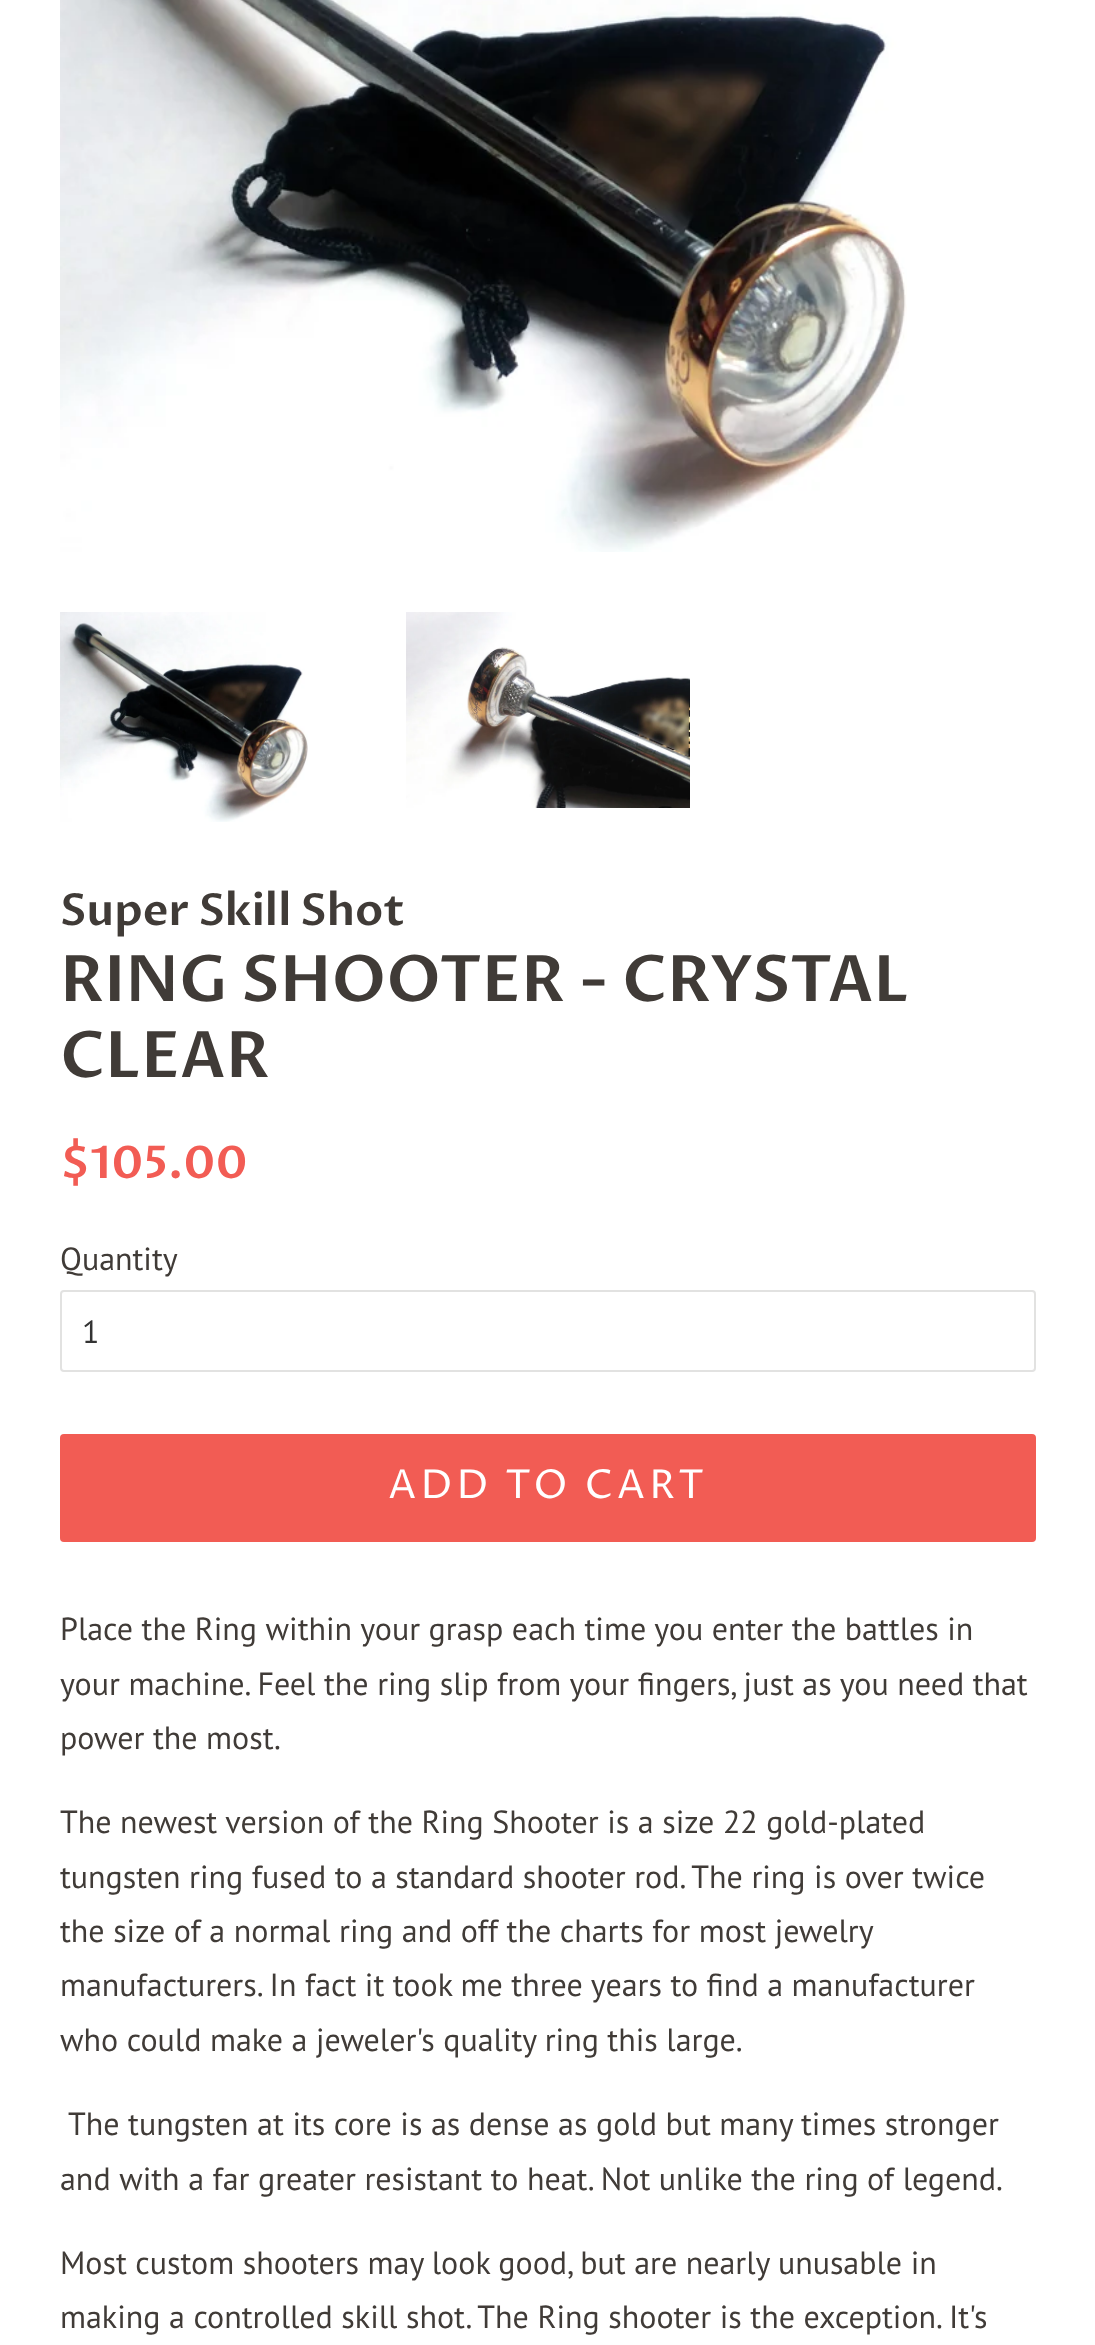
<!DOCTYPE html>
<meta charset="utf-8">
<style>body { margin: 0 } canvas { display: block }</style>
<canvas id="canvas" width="1095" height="2345"></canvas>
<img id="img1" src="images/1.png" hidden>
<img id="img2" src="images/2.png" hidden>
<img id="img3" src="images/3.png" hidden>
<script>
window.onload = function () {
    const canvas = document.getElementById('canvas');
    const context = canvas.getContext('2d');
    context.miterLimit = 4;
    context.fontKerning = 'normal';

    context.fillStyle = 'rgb(255, 255, 255)';
    context.fillRect(0, 0, 1095, 2345);
    context.drawImage(document.getElementById('img1'), 60, 0, 847, 552);
    context.drawImage(document.getElementById('img2'), 60, 612, 248, 210);
    context.drawImage(document.getElementById('img3'), 406, 612, 284, 196);
    context.beginPath();
    context.roundRect(61, 1291, 974, 80, 3);
    context.strokeStyle = 'rgb(226, 226, 225)';
    context.lineWidth = 2;
    context.stroke();
    context.fillStyle = 'rgb(242, 92, 84)';
    context.beginPath();
    context.roundRect(60, 1434, 976, 108, 4);
    context.fill();
    context.font = '600 44px Proza Libre';
    context.fillStyle = 'rgb(64, 59, 55)';
    context.fillText('Super Skill Shot', 60, 925);
    context.font = '600 64px Proza Libre';
    context.fillText('RING SHOOTER - CRYSTAL', 60, 1001);
    context.fillText('CLEAR', 60, 1077);
    context.font = '600 45px Proza Libre';
    context.fillStyle = 'rgb(242, 92, 84)';
    context.fillText('$105.00', 60, 1178);
    context.font = '32px PT Sans';
    context.fillStyle = 'rgb(64, 59, 55)';
    context.fillText('Quantity', 60, 1270);
    context.fillStyle = 'rgb(51, 51, 51)';
    context.fillText('1', 82, 1343);
    context.letterSpacing = '4px';
    context.font = '40px Proza Libre';
    context.fillStyle = 'rgb(255, 255, 255)';
    context.fillText('ADD TO CART', 388, 1498);
    context.letterSpacing = '0px';
    context.font = '32px PT Sans';
    context.fillStyle = 'rgb(64, 59, 55)';
    context.fillText('Place the Ring within your grasp each time you enter the battles in', 60, 1640);
    context.fillText('your machine. Feel the ring slip from your fingers, just as you need that', 60, 1695);
    context.fillText('power the most.', 60, 1749);
    context.fillText('The newest version of the Ring Shooter is a size 22 gold-plated', 60, 1833);
    context.fillText('tungsten ring fused to a standard shooter rod. The ring is over twice', 60, 1888);
    context.fillText('the size of a normal ring and off the charts for most jewelry', 60, 1942);
    context.fillText('manufacturers. In fact it took me three years to find a manufacturer', 60, 1996);
    context.fillText('who could make a jeweler\'s quality ring this large.', 60, 2051);
    context.fillText('The tungsten at its core is as dense as gold but many times stronger', 68, 2135);
    context.fillText('and with a far greater resistant to heat. Not unlike the ring of legend.', 60, 2190);
    context.fillText('Most custom shooters may look good, but are nearly unusable in', 60, 2274);
    context.fillText('making a controlled skill shot. The Ring shooter is the exception. It\'s', 60, 2328);
};
</script>
